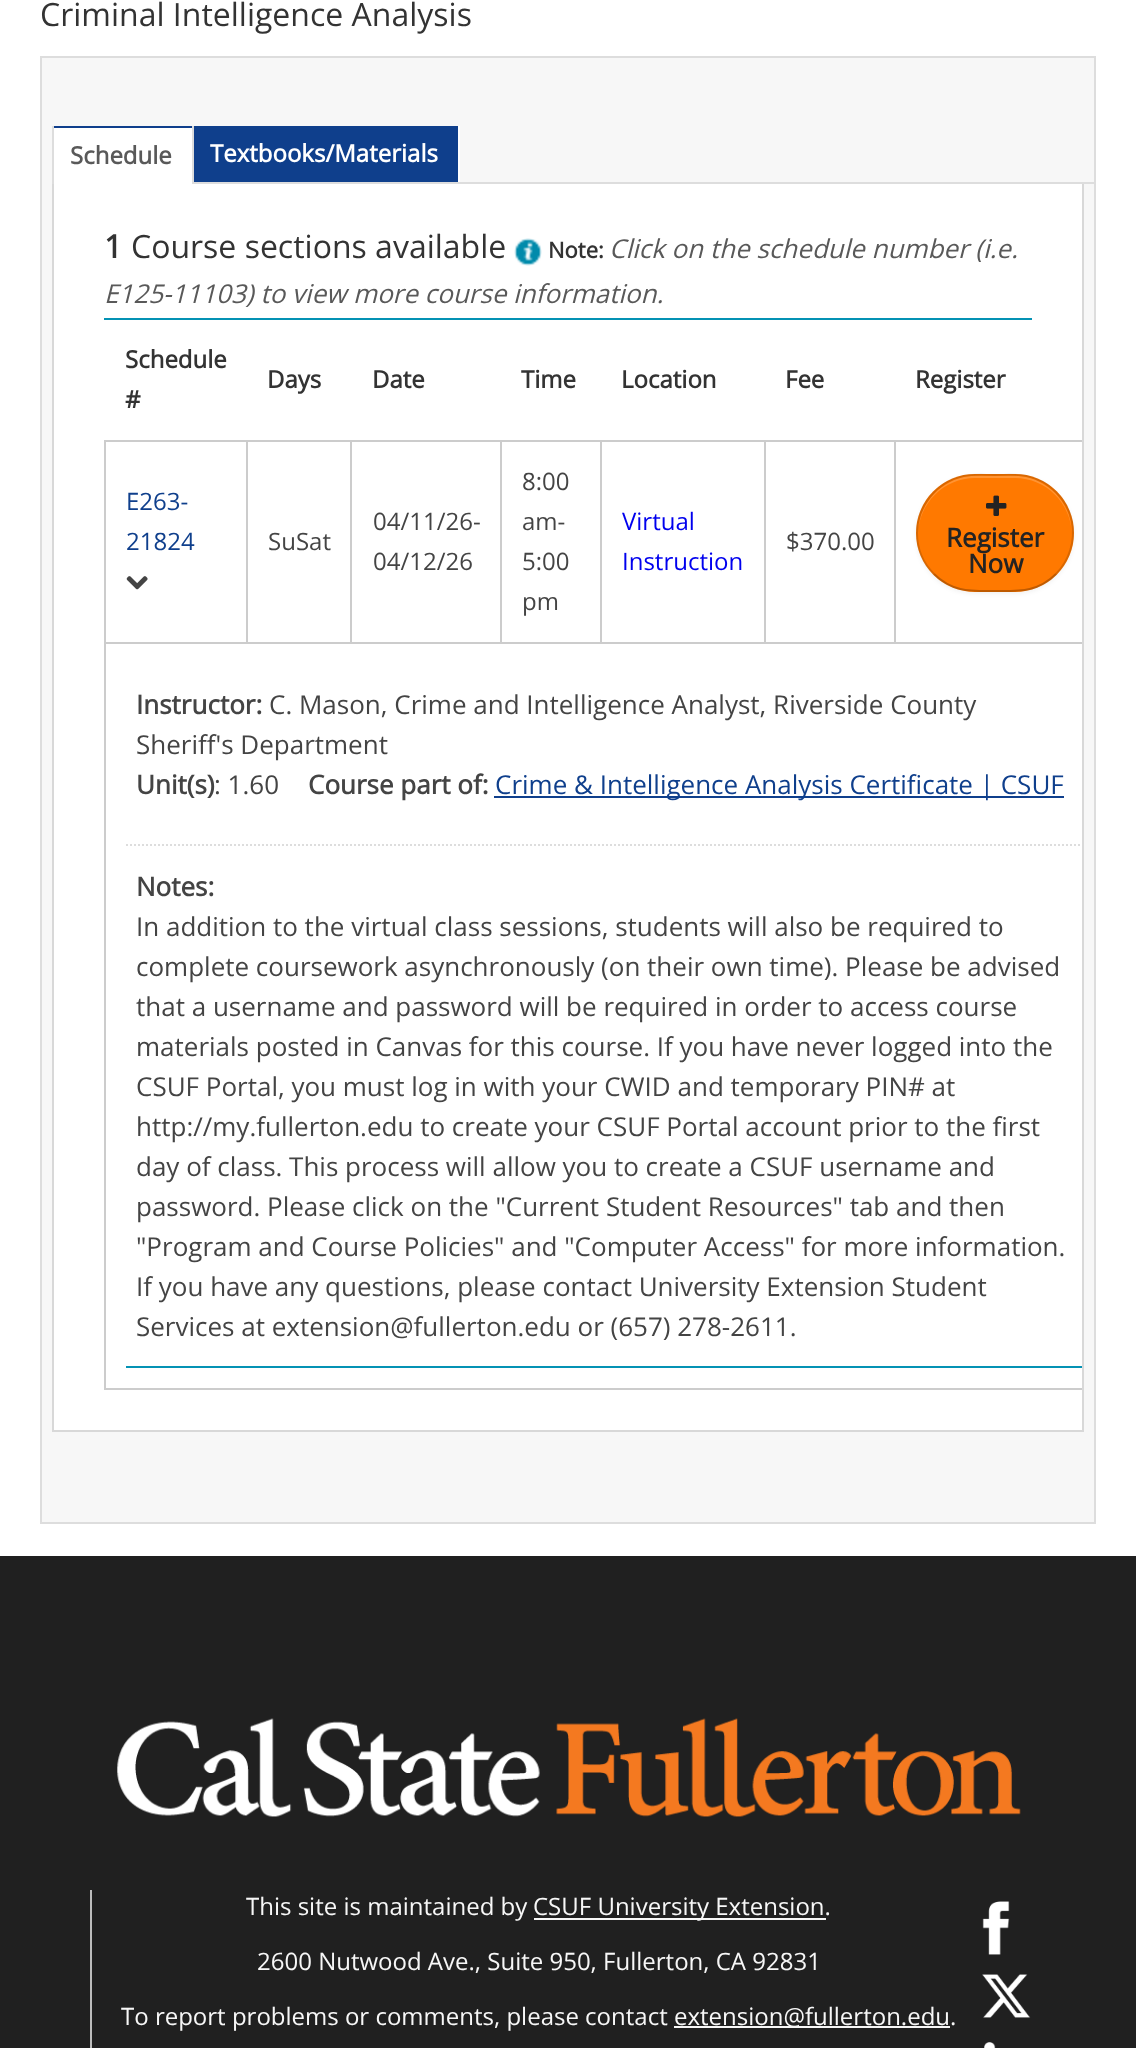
<!DOCTYPE html>
<meta charset="utf-8">
<style>body { margin: 0 } canvas { display: block }</style>
<canvas id="canvas" width="1136" height="2048"></canvas>
<img id="img1" src="images/1.png" hidden>
<img id="img2" src="images/2.png" hidden>
<img id="img3" src="images/3.png" hidden>
<img id="img4" src="images/4.png" hidden>
<img id="img5" src="images/5.png" hidden>
<img id="img6" src="images/6.png" hidden>
<img id="img7" src="images/7.png" hidden>
<script>
window.onload = function () {
    const canvas = document.getElementById('canvas');
    const context = canvas.getContext('2d');
    context.miterLimit = 4;
    context.fontKerning = 'normal';

    context.fillStyle = 'rgb(255, 255, 255)';
    context.fillRect(0, 0, 1136, 2048);
    context.fillStyle = 'rgb(247, 247, 247)';
    context.beginPath();
    context.rect(41, 57, 1054, 1466);
    context.fill();
    context.strokeStyle = 'rgb(221, 221, 221)';
    context.lineWidth = 2;
    context.stroke();
    context.fillStyle = 'rgb(221, 221, 221)';
    context.fillRect(194, 182, 900, 2);
    context.fillStyle = 'rgb(255, 255, 255)';
    context.fillRect(54, 128, 138, 56);
    context.fillStyle = 'rgb(15, 63, 140)';
    context.fillRect(52, 126, 142, 2);
    context.fillStyle = 'rgb(221, 221, 221)';
    context.fillRect(192, 126, 2, 58);
    context.fillRect(52, 126, 2, 58);
    context.fillStyle = 'rgb(15, 63, 140)';
    context.fillRect(194, 126, 264, 56);
    context.fillStyle = 'rgb(255, 255, 255)';
    context.fillRect(458, 126, 2, 56);
    context.fillRect(54, 184, 1028, 1246);
    context.fillStyle = 'rgb(216, 216, 216)';
    context.fillRect(1082, 184, 2, 1248);
    context.fillRect(52, 1430, 1032, 2);
    context.fillRect(52, 184, 2, 1248);
    context.fillStyle = 'rgb(4, 146, 180)';
    context.fillRect(104, 318, 928, 2);
    context.drawImage(document.getElementById('img1'), 514, 238, 28, 28);
    context.fillStyle = 'rgb(204, 204, 204)';
    context.fillRect(894, 440, 188, 2);
    context.fillRect(104, 642, 978, 2);
    context.fillRect(894, 440, 2, 204);
    context.fillRect(764, 440, 132, 2);
    context.fillRect(764, 440, 2, 204);
    context.fillRect(600, 440, 166, 2);
    context.fillRect(600, 440, 2, 204);
    context.fillRect(500, 440, 102, 2);
    context.fillRect(500, 440, 2, 204);
    context.fillRect(350, 440, 152, 2);
    context.fillRect(350, 440, 2, 204);
    context.fillRect(246, 440, 106, 2);
    context.fillRect(246, 440, 2, 204);
    context.fillRect(104, 440, 144, 2);
    context.fillRect(104, 1388, 978, 2);
    context.fillRect(104, 642, 2, 748);
    context.fillRect(104, 440, 2, 204);
    context.drawImage(document.getElementById('img2'), 126, 576, 22, 14);
    context.fillStyle = 'rgba(0, 0, 0, 0.05)';
    context.filter = 'blur(2px)';
    context.beginPath();
    context.roundRect(916, 476, 158, 118, 59);
    context.fill();
    context.filter = 'none';
    context.fillStyle = 'rgb(255, 121, 0)';
    context.beginPath();
    context.roundRect(916, 474, 158, 118, 59);
    context.fill();
    context.fillStyle = 'rgb(255, 148, 51)';
    context.beginPath();
    context.moveTo(975, 478);
    context.lineTo(1015, 478);
    context.bezierCurveTo(1046, 478, 1071, 503, 1072, 534);
    context.bezierCurveTo(1072, 507, 1053, 483, 1026, 477);
    context.bezierCurveTo(1016, 475, 1005, 476, 995, 476);
    context.bezierCurveTo(985, 476, 974, 475, 964, 477);
    context.bezierCurveTo(937, 483, 918, 507, 918, 534);
    context.bezierCurveTo(919, 503, 944, 478, 975, 478);
    context.closePath();
    context.fill();
    context.beginPath();
    context.moveTo(1056, 574);
    context.bezierCurveTo(1037.5, 592.5, 1019, 591, 995, 591);
    context.bezierCurveTo(971, 591, 952.5, 592.5, 934, 574);
    context.strokeStyle = 'rgba(0, 0, 0, 0.25)';
    context.stroke();
    context.beginPath();
    context.moveTo(934, 574);
    context.bezierCurveTo(923, 563, 917, 548.5, 917, 533);
    context.bezierCurveTo(917, 505.5, 937, 481.5, 963.5, 476);
    context.bezierCurveTo(974, 474, 984.5, 475, 995, 475);
    context.bezierCurveTo(1005.5, 475, 1016, 474, 1026.5, 476);
    context.bezierCurveTo(1049, 480.5, 1067.5, 499, 1072, 521.5);
    context.bezierCurveTo(1075.5, 540.5, 1069.5, 560.5, 1056, 574);
    context.strokeStyle = 'rgba(0, 0, 0, 0.15)';
    context.stroke();
    context.drawImage(document.getElementById('img3'), 986, 495, 21, 21);
    context.fillStyle = 'rgb(15, 63, 140)';
    context.fillRect(494, 796, 570, 2);
    context.save();
    context.beginPath();
    context.rect(126, 664, 956, 704);
    context.clip();
    context.beginPath();
    context.moveTo(126, 845);
    context.lineTo(1094, 845);
    context.strokeStyle = 'rgb(221, 221, 221)';
    context.setLineDash([2, 2]);
    context.stroke();
    context.restore();
    context.fillStyle = 'rgb(4, 146, 180)';
    context.fillRect(126, 1366, 956, 2);
    context.fillStyle = 'rgb(32, 32, 32)';
    context.fillRect(0, 1556, 1136, 492);
    context.drawImage(document.getElementById('img4'), 117, 1718, 904, 99);
    context.fillStyle = 'rgb(188, 188, 188)';
    context.fillRect(90, 1890, 2, 158);
    context.fillStyle = 'rgb(247, 247, 247)';
    context.fillRect(534, 1918, 292, 2);
    context.fillRect(674, 2026, 276, 2);
    context.drawImage(document.getElementById('img5'), 982, 1901, 28, 54);
    context.drawImage(document.getElementById('img6'), 982, 1974, 49, 44);
    context.drawImage(document.getElementById('img7'), 984, 2042, 12, 6);
    context.font = '32px Open Sans';
    context.fillStyle = 'rgb(51, 51, 51)';
    context.fillText('Criminal Intelligence Analysis', 40, 26);
    context.font = 'bold 24px Open Sans';
    context.fillStyle = 'rgb(89, 89, 89)';
    context.fillText('Schedule', 70, 164);
    context.fillStyle = 'rgb(255, 255, 255)';
    context.fillText('Textbooks/Materials', 210, 162);
    context.font = 'bold 32px Open Sans';
    context.fillStyle = 'rgb(51, 51, 51)';
    context.fillText('1', 104, 258);
    context.font = '32px Open Sans';
    context.fillText('Course sections available', 131, 258);
    context.font = 'bold 22px Open Sans';
    context.fillText('Note:', 548, 258);
    context.font = 'italic 26px Open Sans';
    context.fillStyle = 'rgb(89, 89, 89)';
    context.fillText('Click on the schedule number (i.e.', 609, 258);
    context.fillText('E125-11103) to view more course information.', 104, 303);
    context.font = 'bold 24px Open Sans';
    context.fillStyle = 'rgb(51, 51, 51)';
    context.fillText('Schedule', 125, 368);
    context.fillText('#', 125, 408);
    context.fillText('Days', 267, 388);
    context.fillText('Date', 372, 388);
    context.fillText('Time', 521, 388);
    context.fillText('Location', 621, 388);
    context.fillText('Fee', 785, 388);
    context.fillText('Register', 915, 388);
    context.font = '24px Open Sans';
    context.fillStyle = 'rgb(15, 63, 140)';
    context.fillText('E263-', 126, 510);
    context.fillText('21824', 126, 550);
    context.fillStyle = 'rgb(68, 68, 68)';
    context.fillText('SuSat', 268, 550);
    context.fillText('04/11/26-', 373, 530);
    context.fillText('04/12/26', 373, 570);
    context.fillText('8:00', 522, 490);
    context.fillText('am-', 522, 530);
    context.fillText('5:00', 522, 570);
    context.fillText('pm', 522, 610);
    context.fillStyle = 'rgb(0, 0, 238)';
    context.fillText('Virtual', 622, 530);
    context.fillText('Instruction', 622, 570);
    context.fillStyle = 'rgb(68, 68, 68)';
    context.fillText('$370.00', 786, 550);
    context.font = 'bold 26px Open Sans';
    context.fillStyle = 'rgb(35, 35, 35)';
    context.fillText('Register', 946, 547);
    context.fillText('Now', 968, 573);
    context.fillStyle = 'rgb(68, 68, 68)';
    context.fillText('Instructor:', 136, 714);
    context.font = '26px Open Sans';
    context.fillText('C. Mason, Crime and Intelligence Analyst, Riverside County', 269, 714);
    context.fillText('Sheriff\'s Department', 136, 754);
    context.font = 'bold 26px Open Sans';
    context.fillText('Unit(s)', 136, 794);
    context.font = '26px Open Sans';
    context.fillText(': 1.60', 214, 794);
    context.font = 'bold 26px Open Sans';
    context.fillText('Course part of:', 308, 794);
    context.font = '26px Open Sans';
    context.fillStyle = 'rgb(15, 63, 140)';
    context.fillText('Crime & Intelligence Analysis Certificate | CSUF', 495, 794);
    context.font = 'bold 26px Open Sans';
    context.fillStyle = 'rgb(68, 68, 68)';
    context.fillText('Notes:', 136, 896);
    context.font = '26px Open Sans';
    context.fillText('In addition to the virtual class sessions, students will also be required to', 136, 936);
    context.fillText('complete coursework asynchronously (on their own time). Please be advised', 136, 976);
    context.fillText('that a username and password will be required in order to access course', 136, 1016);
    context.fillText('materials posted in Canvas for this course. If you have never logged into the', 136, 1056);
    context.fillText('CSUF Portal, you must log in with your CWID and temporary PIN# at', 136, 1096);
    context.fillText('http://my.fullerton.edu to create your CSUF Portal account prior to the first', 136, 1136);
    context.fillText('day of class. This process will allow you to create a CSUF username and', 136, 1176);
    context.fillText('password. Please click on the "Current Student Resources" tab and then', 136, 1216);
    context.fillText('"Program and Course Policies" and "Computer Access" for more information.', 136, 1256);
    context.fillText('If you have any questions, please contact University Extension Student', 136, 1296);
    context.fillText('Services at extension@fullerton.edu or (657) 278-2611.', 136, 1336);
    context.font = '24px Open Sans';
    context.fillStyle = 'rgb(247, 247, 247)';
    context.fillText('This site is maintained by', 246, 1915);
    context.fillText('CSUF University Extension.', 533, 1915);
    context.fillText('2600 Nutwood Ave., Suite 950, Fullerton, CA 92831', 257, 1970);
    context.fillText('To report problems or comments, please contact', 121, 2025);
    context.fillText('extension@fullerton.edu.', 674, 2025);
};
</script>
